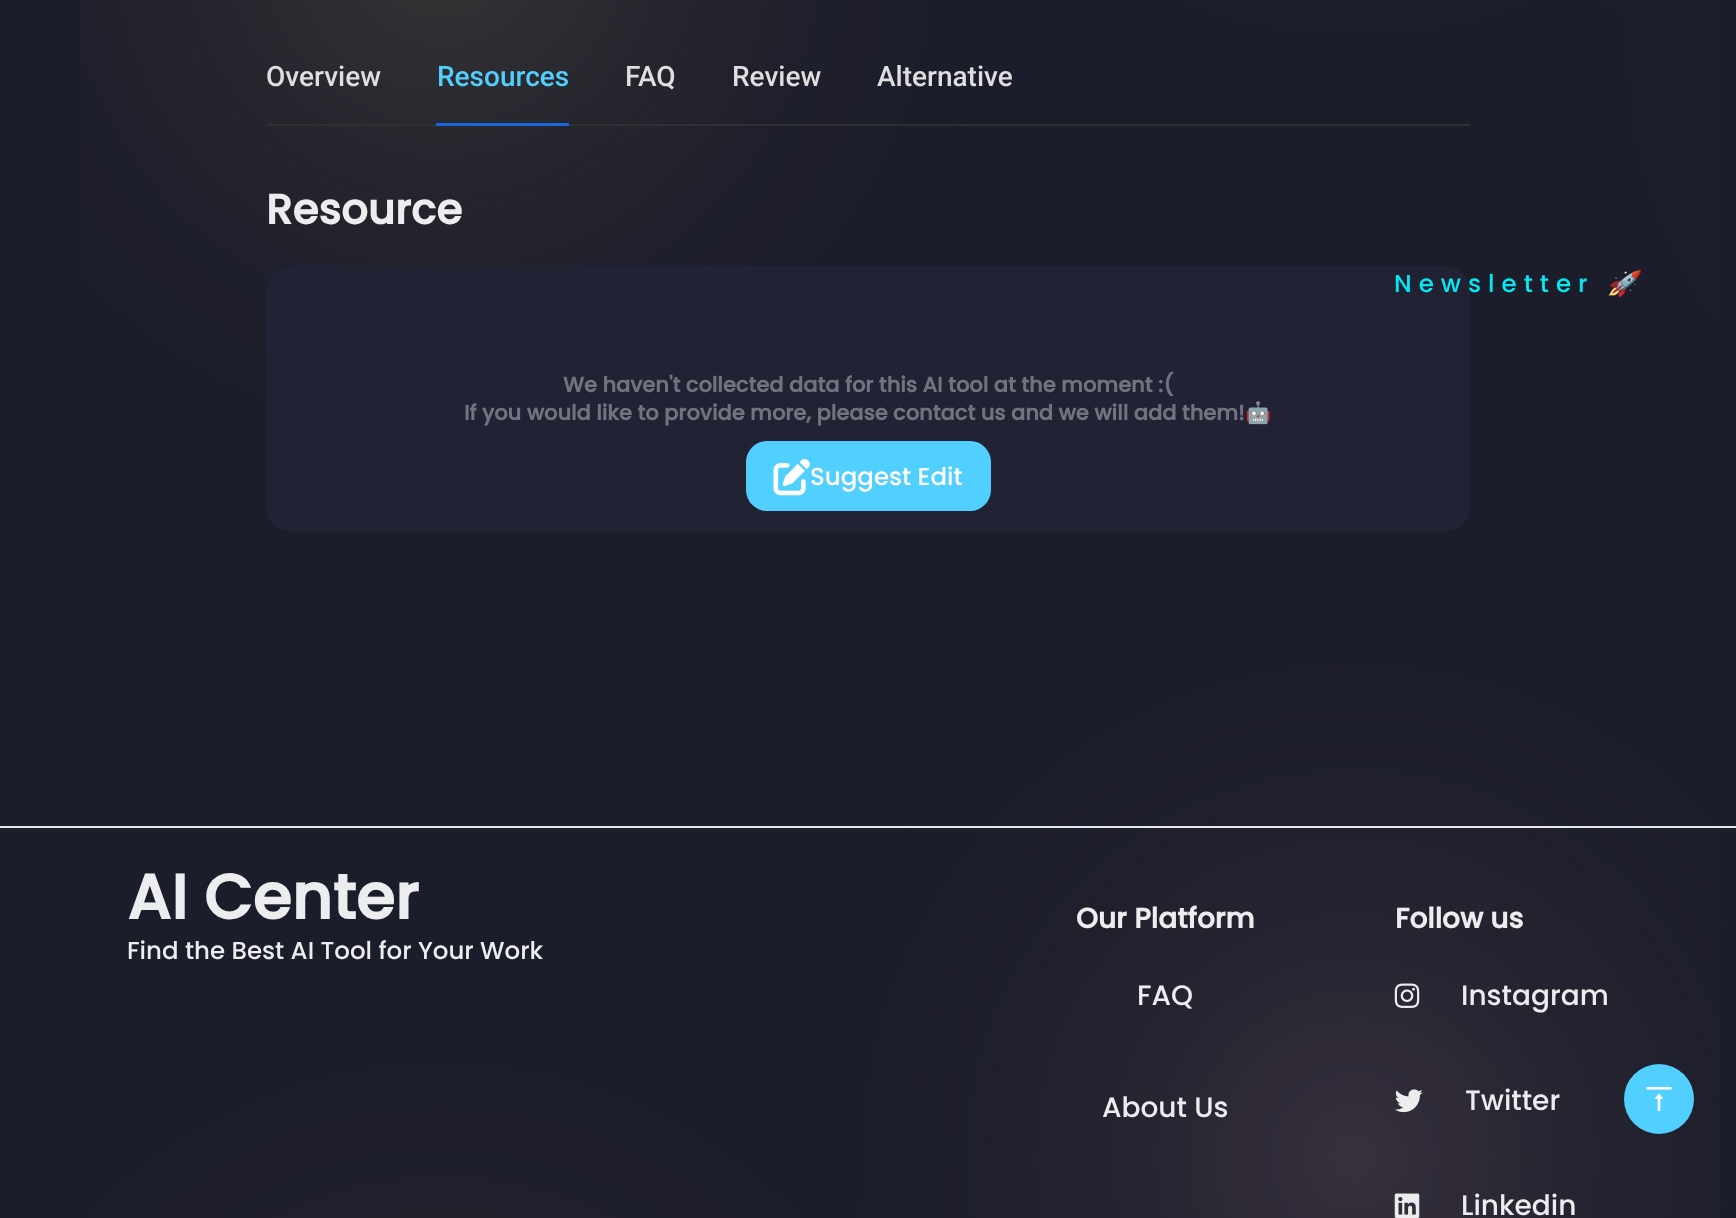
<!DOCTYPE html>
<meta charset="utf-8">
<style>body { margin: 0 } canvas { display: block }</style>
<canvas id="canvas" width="1736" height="1218"></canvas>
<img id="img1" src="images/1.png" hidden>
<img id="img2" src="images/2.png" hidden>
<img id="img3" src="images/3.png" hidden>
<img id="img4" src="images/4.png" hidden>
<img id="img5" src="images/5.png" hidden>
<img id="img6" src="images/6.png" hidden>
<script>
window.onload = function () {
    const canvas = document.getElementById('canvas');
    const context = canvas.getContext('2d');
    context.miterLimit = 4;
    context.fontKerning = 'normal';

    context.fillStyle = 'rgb(28, 29, 43)';
    context.fillRect(0, 0, 1736, 1218);
    context.drawImage(document.getElementById('img1'), 79, 0, 1642, 1218);
    context.fillStyle = 'rgb(48, 48, 48)';
    context.fillRect(266, 124, 1204, 2);
    context.fillStyle = 'rgb(22, 104, 220)';
    context.fillRect(436, 123, 133, 3);
    context.fillStyle = 'rgb(33, 34, 52)';
    context.beginPath();
    context.roundRect(266, 266, 1204, 266, 25);
    context.fill();
    context.fillStyle = 'rgb(81, 207, 255)';
    context.beginPath();
    context.roundRect(746, 441, 245, 70, 21);
    context.fill();
    context.drawImage(document.getElementById('img2'), 773, 458, 37, 38);
    context.fillStyle = 'rgb(229, 231, 235)';
    context.fillRect(0, 826, 1736, 2);
    context.drawImage(document.getElementById('img3'), 1394, 983, 26, 25);
    context.drawImage(document.getElementById('img4'), 1395, 1089, 28, 24);
    context.drawImage(document.getElementById('img5'), 1394, 1193, 26, 25);
    context.fillStyle = 'rgb(81, 207, 255)';
    context.beginPath();
    context.arc(1659, 1099, 35, 0, 2 * Math.PI);
    context.fill();
    context.drawImage(document.getElementById('img6'), 1646, 1086, 26, 26);
    context.font = '500 28px Roboto';
    context.fillStyle = 'rgb(223, 223, 224)';
    context.fillText('Overview', 266, 86);
    context.fillStyle = 'rgb(81, 207, 255)';
    context.fillText('Resources', 437, 86);
    context.fillStyle = 'rgb(223, 223, 224)';
    context.fillText('FAQ', 625, 86);
    context.fillText('Review', 732, 86);
    context.fillText('Alternative', 877, 86);
    context.font = 'bold 42px Poppins';
    context.fillStyle = 'rgb(236, 237, 238)';
    context.fillText('Resource', 266, 224);
    context.font = 'bold 21px Poppins';
    context.fillStyle = 'rgb(114, 115, 126)';
    context.fillText('We haven\'t collected data for this AI tool at the moment :(', 563, 392);
    context.fillText('If you would like to provide more, please contact us and we will add them!', 464, 420);
    context.font = 'bold 21px Noto Color Emoji';
    context.fillText('🤖', 1245, 420);
    context.font = '500 24.5px Poppins';
    context.fillStyle = 'rgb(255, 255, 255)';
    context.fillText('Suggest Edit', 810, 485);
    context.letterSpacing = '7px';
    context.fillStyle = 'rgb(3, 233, 244)';
    context.fillText('Newsletter', 1394, 292);
    context.font = 'italic 24.5px Noto Color Emoji';
    context.fillText('🚀', 1607, 292);
    context.letterSpacing = '0px';
    context.font = 'bold 63px Poppins';
    context.fillStyle = 'rgb(236, 237, 238)';
    context.fillText('AI Center', 127, 919);
    context.font = '500 24.5px Poppins';
    context.fillText('Find the Best AI Tool for Your Work', 127, 959);
    context.font = 'bold 28px Poppins';
    context.fillText('Our Platform', 1076, 928);
    context.font = '500 28px Poppins';
    context.fillText('FAQ', 1137, 1005);
    context.fillText('About Us', 1102, 1117);
    context.font = 'bold 28px Poppins';
    context.fillText('Follow us', 1395, 928);
    context.font = '500 28px Poppins';
    context.fillText('Instagram', 1461, 1005);
    context.fillText('Twitter', 1465, 1110);
    context.fillText('Linkedin', 1461, 1215);
};
</script>
